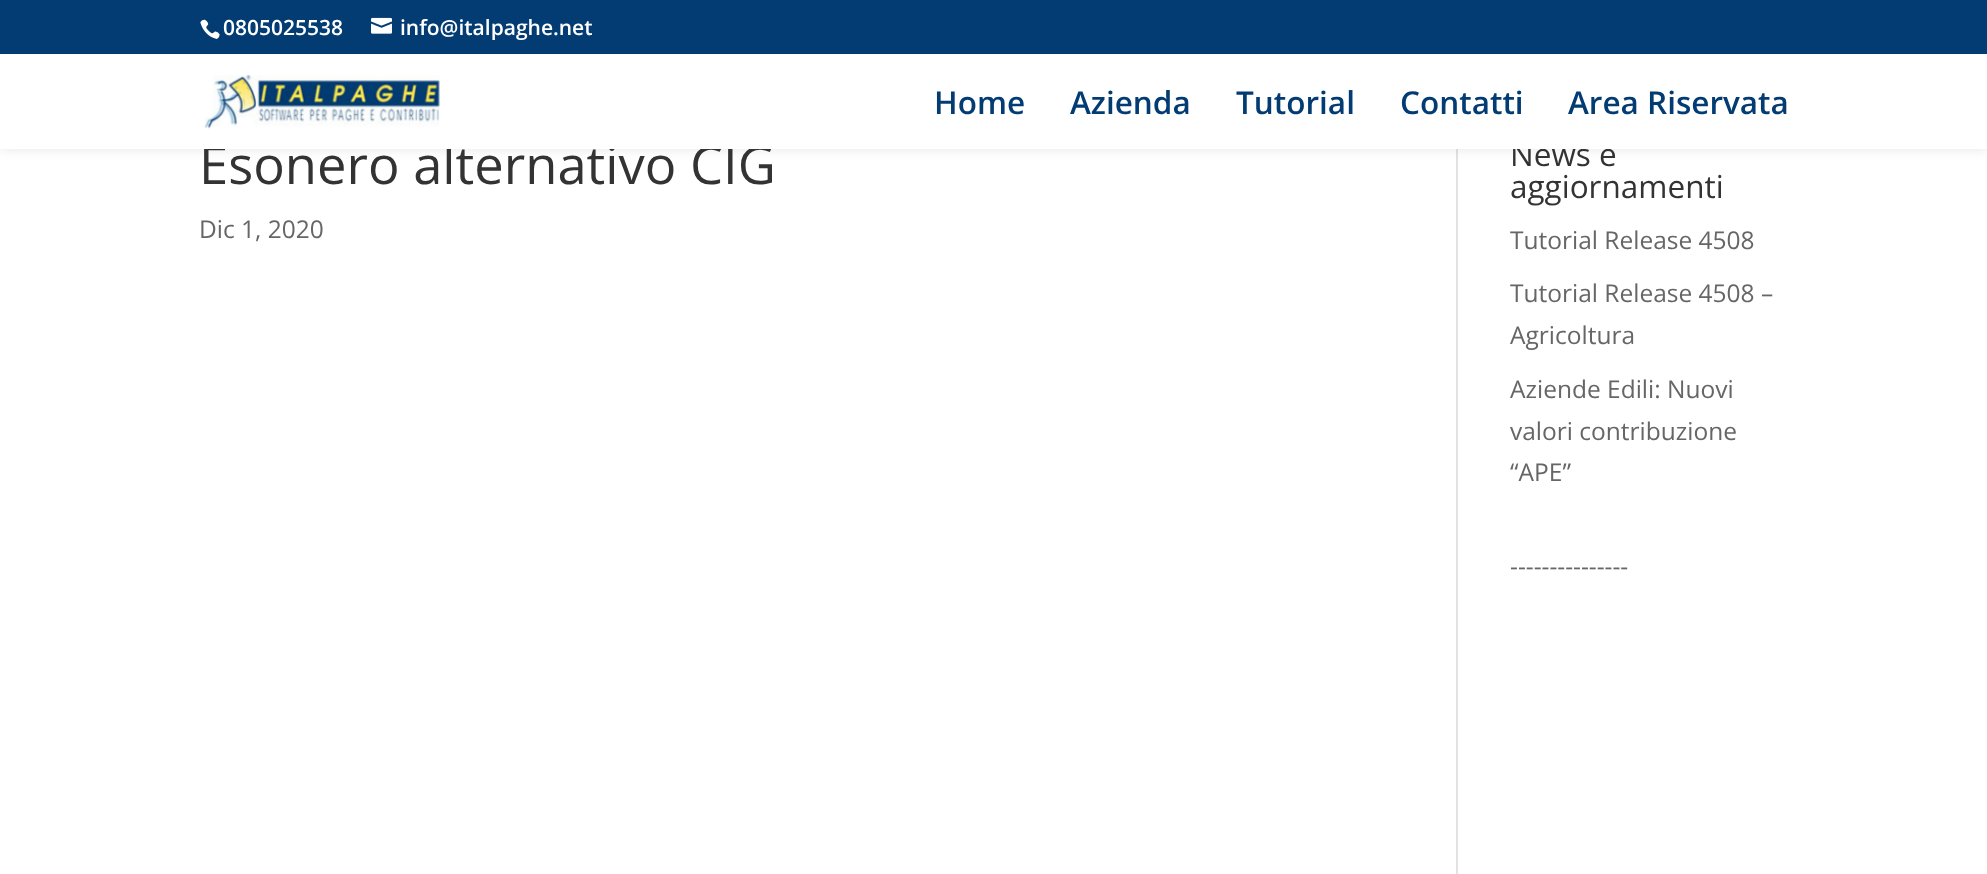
<!DOCTYPE html>
<meta charset="utf-8">
<style>body { margin: 0 } canvas { display: block }</style>
<canvas id="canvas" width="1987" height="874"></canvas>
<img id="img1" src="images/1.png" hidden>
<img id="img2" src="images/2.png" hidden>
<img id="img3" src="images/3.png" hidden>
<script>
window.onload = function () {
    const canvas = document.getElementById('canvas');
    const context = canvas.getContext('2d');
    context.miterLimit = 4;
    context.fontKerning = 'normal';

    context.fillStyle = 'rgb(255, 255, 255)';
    context.fillRect(0, 0, 1987, 874);
    context.fillStyle = 'rgb(226, 226, 226)';
    context.fillRect(1456, 149, 2, 725);
    context.fillStyle = 'rgba(0, 0, 0, 0.1)';
    context.filter = 'blur(6px)';
    context.beginPath();
    context.rect(0, 54, 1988, 95);
    context.fill();
    context.filter = 'none';
    context.fillStyle = 'rgb(3, 60, 115)';
    context.fillRect(0, 0, 1987, 54);
    context.drawImage(document.getElementById('img1'), 200, 19, 20, 20);
    context.drawImage(document.getElementById('img2'), 371, 17, 21, 17);
    context.font = '600 21px Open Sans';
    context.fillStyle = 'rgb(255, 255, 255)';
    context.fillText('0805025538', 223, 35);
    context.fillText('info@italpaghe.net', 400, 35);
    context.font = '52.5px Open Sans';
    context.fillStyle = 'rgb(51, 51, 51)';
    context.fillText('Esonero alternativo CIG', 199, 184);
    context.font = '24.5px Open Sans';
    context.fillStyle = 'rgb(102, 102, 102)';
    context.fillText('Dic 1, 2020', 199, 238);
    context.font = '31.5px Open Sans';
    context.fillStyle = 'rgb(51, 51, 51)';
    context.fillText('News e', 1510, 166);
    context.fillStyle = 'rgb(255, 255, 255)';
    context.fillRect(0, 54, 1987, 95);
    context.font = '600 31.5px Open Sans';
    context.fillStyle = 'rgb(3, 60, 115)';
    context.fillText('Area Riservata', 1568, 114);
    context.fillText('Contatti', 1400, 114);
    context.fillText('Tutorial', 1236, 114);
    context.fillText('Azienda', 1070, 114);
    context.fillText('Home', 934, 114);
    context.drawImage(document.getElementById('img3'), 204, 75, 236, 54);
    context.font = '31.5px Open Sans';
    context.fillStyle = 'rgb(51, 51, 51)';
    context.fillText('aggiornamenti', 1510, 198);
    context.font = '24.5px Open Sans';
    context.fillStyle = 'rgb(102, 102, 102)';
    context.fillText('Tutorial Release 4508', 1510, 249);
    context.fillText('Tutorial Release 4508 –', 1510, 302);
    context.fillText('Agricoltura', 1510, 344);
    context.fillText('Aziende Edili: Nuovi', 1510, 398);
    context.fillText('valori contribuzione', 1510, 440);
    context.fillText('“APE”', 1510, 481);
    context.fillText('---------------', 1510, 575);
};
</script>
